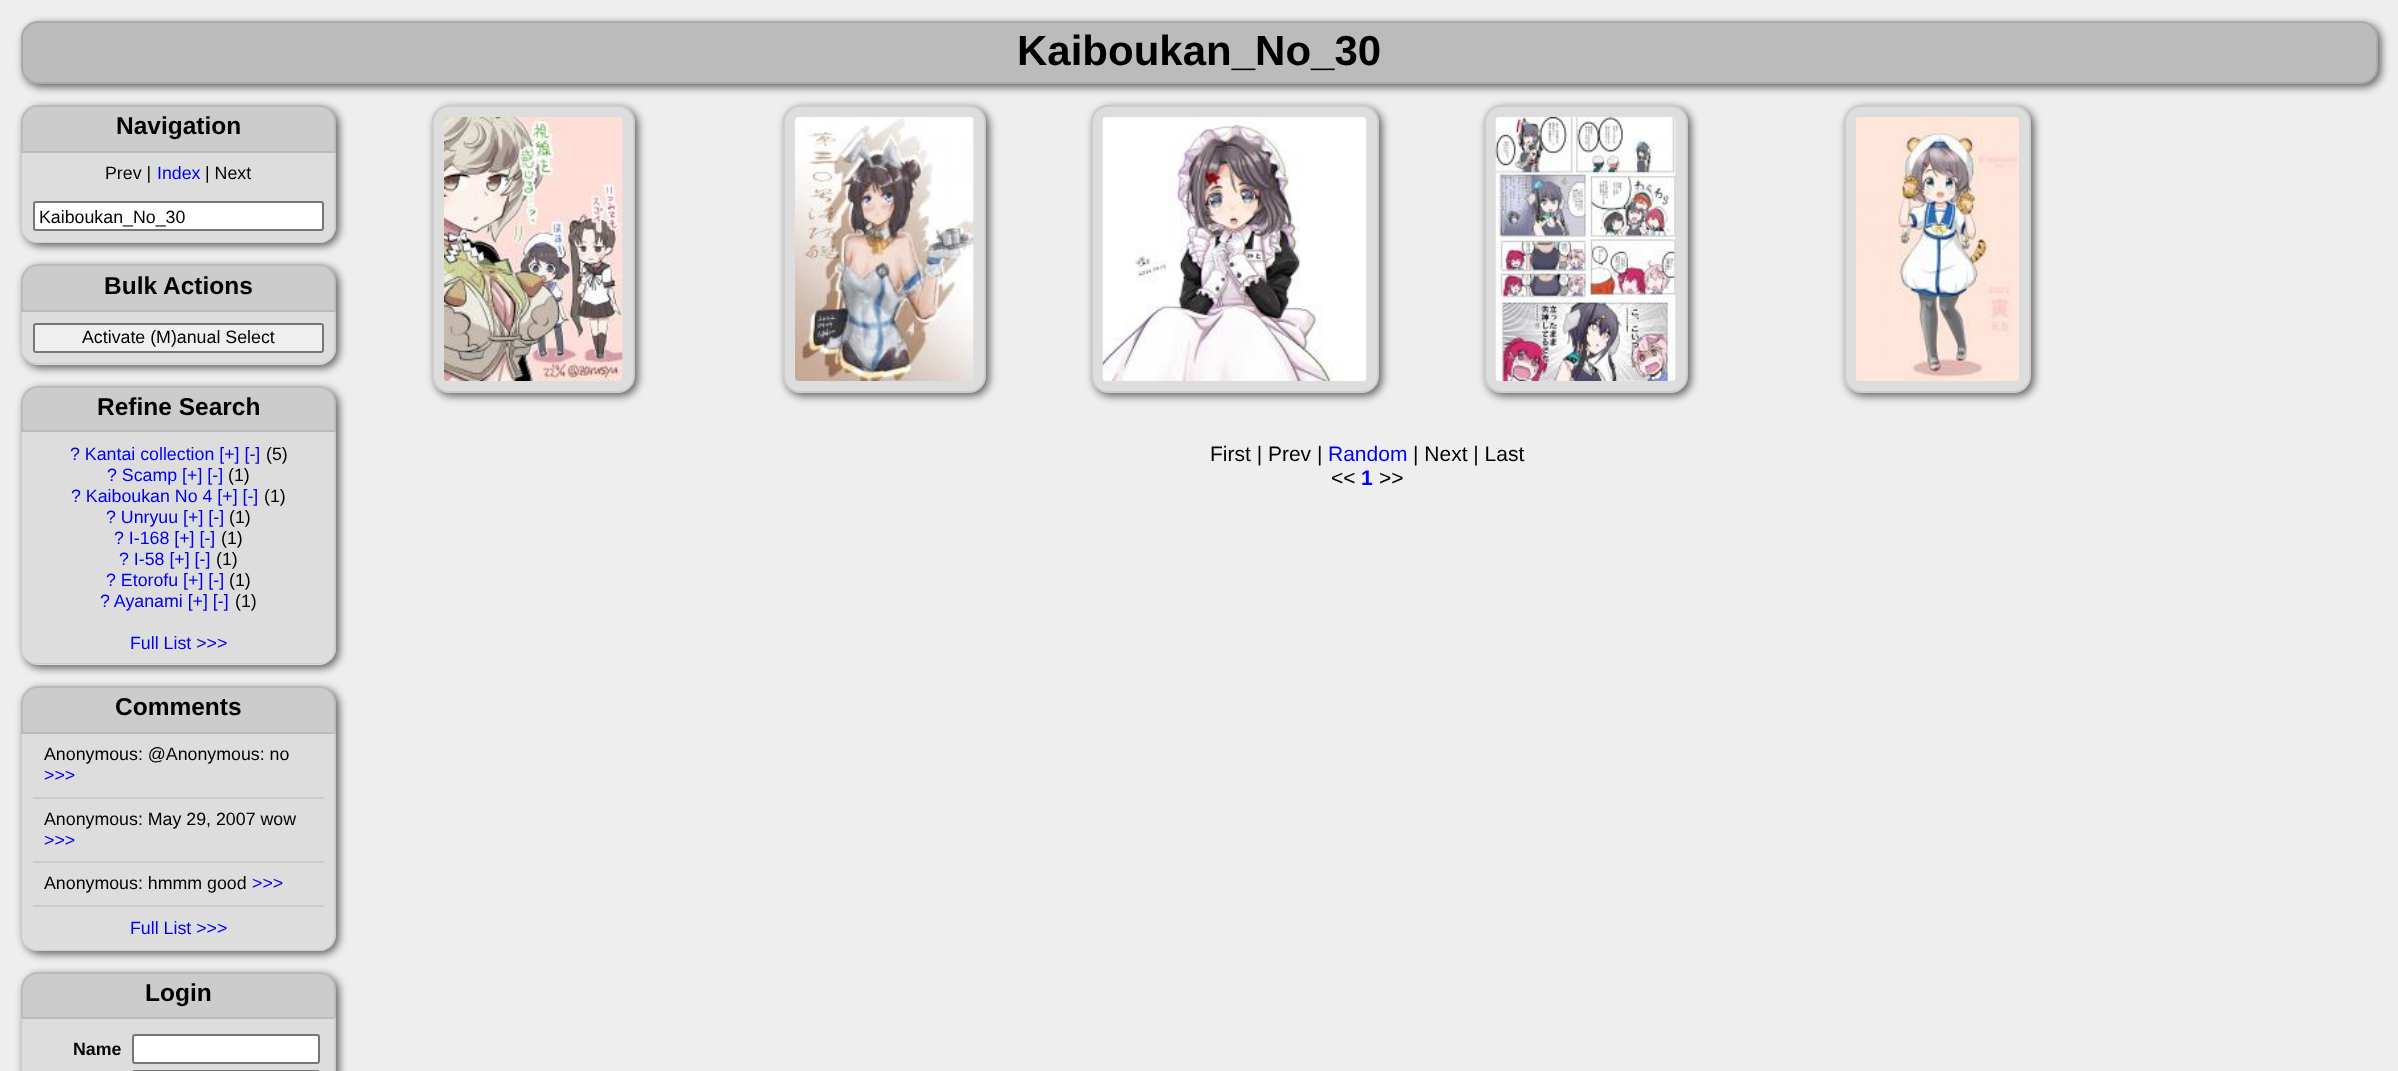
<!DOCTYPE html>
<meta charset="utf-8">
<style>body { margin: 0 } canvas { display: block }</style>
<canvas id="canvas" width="2398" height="1071"></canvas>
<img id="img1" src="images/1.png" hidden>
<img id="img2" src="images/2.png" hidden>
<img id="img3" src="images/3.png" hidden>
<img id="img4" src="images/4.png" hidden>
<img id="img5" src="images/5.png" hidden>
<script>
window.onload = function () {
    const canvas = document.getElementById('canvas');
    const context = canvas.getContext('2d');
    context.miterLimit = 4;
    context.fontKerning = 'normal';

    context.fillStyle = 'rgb(238, 238, 238)';
    context.fillRect(0, 0, 2398, 1071);
    context.fillStyle = 'rgba(0, 0, 0, 0.6)';
    context.filter = 'blur(4.5px)';
    context.beginPath();
    context.roundRect(24, 24, 2357, 63, 17);
    context.fill();
    context.filter = 'none';
    context.fillStyle = 'rgb(187, 187, 187)';
    context.beginPath();
    context.roundRect(22, 22, 2355, 61, 16);
    context.fill();
    context.strokeStyle = 'rgb(170, 170, 170)';
    context.lineWidth = 2;
    context.stroke();
    context.fillStyle = 'rgba(0, 0, 0, 0.6)';
    context.filter = 'blur(4.5px)';
    context.beginPath();
    context.roundRect(24, 108, 315, 138, 17);
    context.fill();
    context.filter = 'none';
    context.fillStyle = 'rgb(204, 204, 204)';
    context.beginPath();
    context.roundRect(22, 106, 313, 46, [16, 16, 0, 0]);
    context.fill();
    context.strokeStyle = 'rgb(187, 187, 187)';
    context.stroke();
    context.fillStyle = 'rgb(221, 221, 221)';
    context.beginPath();
    context.roundRect(21, 153, 315, 90, [0, 0, 17, 17]);
    context.fill();
    context.fillStyle = 'rgb(204, 204, 204)';
    context.beginPath();
    context.moveTo(21, 153);
    context.lineTo(336, 153);
    context.lineTo(336, 227);
    context.bezierCurveTo(336, 236, 329, 243, 320, 243);
    context.lineTo(37, 243);
    context.bezierCurveTo(28, 243, 21, 236, 21, 227);
    context.closePath();
    context.moveTo(22, 153);
    context.lineTo(334, 153);
    context.lineTo(334, 227);
    context.bezierCurveTo(334, 235, 328, 242, 320, 242);
    context.lineTo(37, 242);
    context.bezierCurveTo(29, 242, 22, 235, 22, 227);
    context.closePath();
    context.fill('evenodd');
    context.fillStyle = 'rgb(255, 255, 255)';
    context.beginPath();
    context.roundRect(34, 202, 289, 28, 2);
    context.fill();
    context.strokeStyle = 'rgb(118, 118, 118)';
    context.stroke();
    context.fillStyle = 'rgba(0, 0, 0, 0.6)';
    context.filter = 'blur(4.5px)';
    context.beginPath();
    context.roundRect(24, 267, 315, 101, 17);
    context.fill();
    context.filter = 'none';
    context.fillStyle = 'rgb(204, 204, 204)';
    context.beginPath();
    context.roundRect(22, 265, 313, 46, [16, 16, 0, 0]);
    context.fill();
    context.strokeStyle = 'rgb(187, 187, 187)';
    context.stroke();
    context.fillStyle = 'rgb(221, 221, 221)';
    context.beginPath();
    context.roundRect(21, 312, 315, 53, [0, 0, 17, 17]);
    context.fill();
    context.fillStyle = 'rgb(204, 204, 204)';
    context.beginPath();
    context.moveTo(21, 312);
    context.lineTo(336, 312);
    context.lineTo(336, 349);
    context.bezierCurveTo(336, 357, 329, 364, 320, 364);
    context.lineTo(37, 364);
    context.bezierCurveTo(28, 364, 21, 357, 21, 349);
    context.closePath();
    context.moveTo(22, 312);
    context.lineTo(334, 312);
    context.lineTo(334, 349);
    context.bezierCurveTo(334, 357, 328, 363, 320, 363);
    context.lineTo(37, 363);
    context.bezierCurveTo(29, 363, 22, 357, 22, 349);
    context.closePath();
    context.fill('evenodd');
    context.fillStyle = 'rgb(239, 239, 239)';
    context.beginPath();
    context.roundRect(34, 324, 289, 28, 2);
    context.fill();
    context.strokeStyle = 'rgb(118, 118, 118)';
    context.stroke();
    context.fillStyle = 'rgba(0, 0, 0, 0.6)';
    context.filter = 'blur(4.5px)';
    context.beginPath();
    context.roundRect(24, 389, 315, 279, 17);
    context.fill();
    context.filter = 'none';
    context.fillStyle = 'rgb(204, 204, 204)';
    context.beginPath();
    context.roundRect(22, 387, 313, 44, [16, 16, 0, 0]);
    context.fill();
    context.strokeStyle = 'rgb(187, 187, 187)';
    context.stroke();
    context.fillStyle = 'rgb(221, 221, 221)';
    context.beginPath();
    context.roundRect(21, 432, 315, 233, [0, 0, 17, 17]);
    context.fill();
    context.fillStyle = 'rgb(204, 204, 204)';
    context.beginPath();
    context.moveTo(21, 432);
    context.lineTo(336, 432);
    context.lineTo(336, 649);
    context.bezierCurveTo(336, 657, 329, 664, 320, 664);
    context.lineTo(37, 664);
    context.bezierCurveTo(28, 664, 21, 657, 21, 649);
    context.closePath();
    context.moveTo(22, 432);
    context.lineTo(334, 432);
    context.lineTo(334, 649);
    context.bezierCurveTo(334, 657, 328, 663, 320, 663);
    context.lineTo(37, 663);
    context.bezierCurveTo(29, 663, 22, 657, 22, 649);
    context.closePath();
    context.fill('evenodd');
    context.fillStyle = 'rgba(0, 0, 0, 0.6)';
    context.filter = 'blur(4.5px)';
    context.beginPath();
    context.roundRect(24, 689, 315, 265, 17);
    context.fill();
    context.filter = 'none';
    context.fillStyle = 'rgb(204, 204, 204)';
    context.beginPath();
    context.roundRect(22, 687, 313, 46, [16, 16, 0, 0]);
    context.fill();
    context.stroke();
    context.fillStyle = 'rgb(221, 221, 221)';
    context.beginPath();
    context.roundRect(21, 734, 315, 217, [0, 0, 17, 17]);
    context.fill();
    context.fillStyle = 'rgb(204, 204, 204)';
    context.beginPath();
    context.moveTo(21, 734);
    context.lineTo(336, 734);
    context.lineTo(336, 935);
    context.bezierCurveTo(336, 944, 329, 951, 320, 951);
    context.lineTo(37, 951);
    context.bezierCurveTo(28, 951, 21, 944, 21, 935);
    context.closePath();
    context.moveTo(22, 734);
    context.lineTo(334, 734);
    context.lineTo(334, 935);
    context.bezierCurveTo(334, 943, 328, 950, 320, 950);
    context.lineTo(37, 950);
    context.bezierCurveTo(29, 950, 22, 943, 22, 935);
    context.closePath();
    context.fill('evenodd');
    context.fillRect(33, 797, 291, 2);
    context.fillRect(33, 861, 291, 2);
    context.fillRect(33, 905, 291, 2);
    context.fillStyle = 'rgba(0, 0, 0, 0.6)';
    context.filter = 'blur(4.5px)';
    context.beginPath();
    context.roundRect(24, 975, 315, 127, 17);
    context.fill();
    context.filter = 'none';
    context.fillStyle = 'rgb(204, 204, 204)';
    context.beginPath();
    context.roundRect(22, 973, 313, 45, [16, 16, 0, 0]);
    context.fill();
    context.stroke();
    context.fillStyle = 'rgb(221, 221, 221)';
    context.fillRect(22, 1019, 312, 52);
    context.fillStyle = 'rgb(204, 204, 204)';
    context.beginPath();
    context.moveTo(21, 1018);
    context.lineTo(336, 1018);
    context.lineTo(336, 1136);
    context.bezierCurveTo(336, 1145, 329, 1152, 320, 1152);
    context.lineTo(37, 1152);
    context.bezierCurveTo(28, 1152, 21, 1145, 21, 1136);
    context.closePath();
    context.moveTo(22, 1018);
    context.lineTo(334, 1018);
    context.lineTo(334, 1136);
    context.bezierCurveTo(334, 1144, 328, 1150, 320, 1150);
    context.lineTo(37, 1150);
    context.bezierCurveTo(29, 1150, 22, 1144, 22, 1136);
    context.closePath();
    context.fill('evenodd');
    context.fillStyle = 'rgb(255, 255, 255)';
    context.beginPath();
    context.roundRect(133, 1035, 186, 28, 2);
    context.fill();
    context.strokeStyle = 'rgb(118, 118, 118)';
    context.stroke();
    context.beginPath();
    context.roundRect(133, 1071, 186, 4, 2);
    context.stroke();
    context.fillStyle = 'rgba(0, 0, 0, 0.6)';
    context.filter = 'blur(4.5px)';
    context.beginPath();
    context.roundRect(435, 108, 203, 288, 17);
    context.fill();
    context.filter = 'none';
    context.fillStyle = 'rgb(221, 221, 221)';
    context.beginPath();
    context.roundRect(433, 106, 201, 286, 16);
    context.fill();
    context.strokeStyle = 'rgb(204, 204, 204)';
    context.stroke();
    context.drawImage(document.getElementById('img1'), 444, 117, 179, 264);
    context.fillStyle = 'rgba(0, 0, 0, 0.6)';
    context.filter = 'blur(4.5px)';
    context.beginPath();
    context.roundRect(786, 108, 203, 288, 17);
    context.fill();
    context.filter = 'none';
    context.fillStyle = 'rgb(221, 221, 221)';
    context.beginPath();
    context.roundRect(784, 106, 201, 286, 16);
    context.fill();
    context.stroke();
    context.drawImage(document.getElementById('img2'), 795, 117, 179, 264);
    context.fillStyle = 'rgba(0, 0, 0, 0.6)';
    context.filter = 'blur(4.5px)';
    context.beginPath();
    context.roundRect(1094, 108, 288, 288, 17);
    context.fill();
    context.filter = 'none';
    context.fillStyle = 'rgb(221, 221, 221)';
    context.beginPath();
    context.roundRect(1092, 106, 286, 286, 16);
    context.fill();
    context.stroke();
    context.drawImage(document.getElementById('img3'), 1102, 117, 265, 264);
    context.fillStyle = 'rgba(0, 0, 0, 0.6)';
    context.filter = 'blur(4.5px)';
    context.beginPath();
    context.roundRect(1487, 108, 204, 288, 17);
    context.fill();
    context.filter = 'none';
    context.fillStyle = 'rgb(221, 221, 221)';
    context.beginPath();
    context.roundRect(1485, 106, 202, 286, 16);
    context.fill();
    context.stroke();
    context.drawImage(document.getElementById('img4'), 1495, 117, 181, 264);
    context.fillStyle = 'rgba(0, 0, 0, 0.6)';
    context.filter = 'blur(4.5px)';
    context.beginPath();
    context.roundRect(1847, 108, 187, 288, 17);
    context.fill();
    context.filter = 'none';
    context.fillStyle = 'rgb(221, 221, 221)';
    context.beginPath();
    context.roundRect(1845, 106, 185, 286, 16);
    context.fill();
    context.stroke();
    context.drawImage(document.getElementById('img5'), 1855, 117, 164, 264);
    context.font = 'bold 42px Liberation Sans';
    context.fillStyle = 'rgb(0, 0, 0)';
    context.fillText('Kaiboukan_No_30', 1017, 65);
    context.font = 'bold 24.5px Liberation Sans';
    context.fillText('Navigation', 116, 134);
    context.font = '17.8px Liberation Sans';
    context.fillText('Prev |', 105, 179);
    context.fillStyle = 'rgb(0, 0, 238)';
    context.fillText('Index', 157, 179);
    context.fillStyle = 'rgb(0, 0, 0)';
    context.fillText('| Next', 205, 179);
    context.fillText('Kaiboukan_No_30', 39, 223);
    context.font = 'bold 24.5px Liberation Sans';
    context.fillText('Bulk Actions', 104, 294);
    context.font = '17.8px Liberation Sans';
    context.fillText('Activate (M)anual Select', 82, 343);
    context.font = 'bold 24.5px Liberation Sans';
    context.fillText('Refine Search', 97, 415);
    context.font = '17.8px Liberation Sans';
    context.fillStyle = 'rgb(0, 0, 238)';
    context.fillText('? Kantai collection [+] [-]', 70, 460);
    context.fillStyle = 'rgb(0, 0, 0)';
    context.fillText('(5)', 266, 460);
    context.fillStyle = 'rgb(0, 0, 238)';
    context.fillText('? Scamp [+] [-]', 107, 481);
    context.fillStyle = 'rgb(0, 0, 0)';
    context.fillText('(1)', 228, 481);
    context.fillStyle = 'rgb(0, 0, 238)';
    context.fillText('? Kaiboukan No 4 [+] [-]', 71, 502);
    context.fillStyle = 'rgb(0, 0, 0)';
    context.fillText('(1)', 264, 502);
    context.fillStyle = 'rgb(0, 0, 238)';
    context.fillText('? Unryuu [+] [-]', 106, 523);
    context.fillStyle = 'rgb(0, 0, 0)';
    context.fillText('(1)', 229, 523);
    context.fillStyle = 'rgb(0, 0, 238)';
    context.fillText('? I-168 [+] [-]', 114, 544);
    context.fillStyle = 'rgb(0, 0, 0)';
    context.fillText('(1)', 221, 544);
    context.fillStyle = 'rgb(0, 0, 238)';
    context.fillText('? I-58 [+] [-]', 119, 565);
    context.fillStyle = 'rgb(0, 0, 0)';
    context.fillText('(1)', 216, 565);
    context.fillStyle = 'rgb(0, 0, 238)';
    context.fillText('? Etorofu [+] [-]', 106, 586);
    context.fillStyle = 'rgb(0, 0, 0)';
    context.fillText('(1)', 229, 586);
    context.fillStyle = 'rgb(0, 0, 238)';
    context.fillText('? Ayanami [+] [-]', 100, 607);
    context.fillStyle = 'rgb(0, 0, 0)';
    context.fillText('(1)', 235, 607);
    context.fillStyle = 'rgb(0, 0, 238)';
    context.fillText('Full List >>>', 130, 649);
    context.font = 'bold 24.5px Liberation Sans';
    context.fillStyle = 'rgb(0, 0, 0)';
    context.fillText('Comments', 115, 715);
    context.font = '17.8px Liberation Sans';
    context.fillText('Anonymous: @Anonymous: no', 44, 760);
    context.fillStyle = 'rgb(0, 0, 238)';
    context.fillText('>>>', 44, 781);
    context.fillStyle = 'rgb(0, 0, 0)';
    context.fillText('Anonymous: May 29, 2007 wow', 44, 825);
    context.fillStyle = 'rgb(0, 0, 238)';
    context.fillText('>>>', 44, 846);
    context.fillStyle = 'rgb(0, 0, 0)';
    context.fillText('Anonymous: hmmm good', 44, 889);
    context.fillStyle = 'rgb(0, 0, 238)';
    context.fillText('>>>', 252, 889);
    context.fillText('Full List >>>', 130, 934);
    context.font = 'bold 24.5px Liberation Sans';
    context.fillStyle = 'rgb(0, 0, 0)';
    context.fillText('Login', 145, 1001);
    context.font = 'bold 17.8px Liberation Sans';
    context.fillText('Name', 73, 1055);
    context.font = '21px Liberation Sans';
    context.fillText('First | Prev |', 1210, 461);
    context.fillStyle = 'rgb(0, 0, 238)';
    context.fillText('Random', 1328, 461);
    context.fillStyle = 'rgb(0, 0, 0)';
    context.fillText('| Next | Last', 1413, 461);
    context.fillText('<<', 1331, 485);
    context.font = 'bold 21px Liberation Sans';
    context.fillStyle = 'rgb(0, 0, 238)';
    context.fillText('1', 1361, 485);
    context.font = '21px Liberation Sans';
    context.fillStyle = 'rgb(0, 0, 0)';
    context.fillText('>>', 1379, 485);
};
</script>
